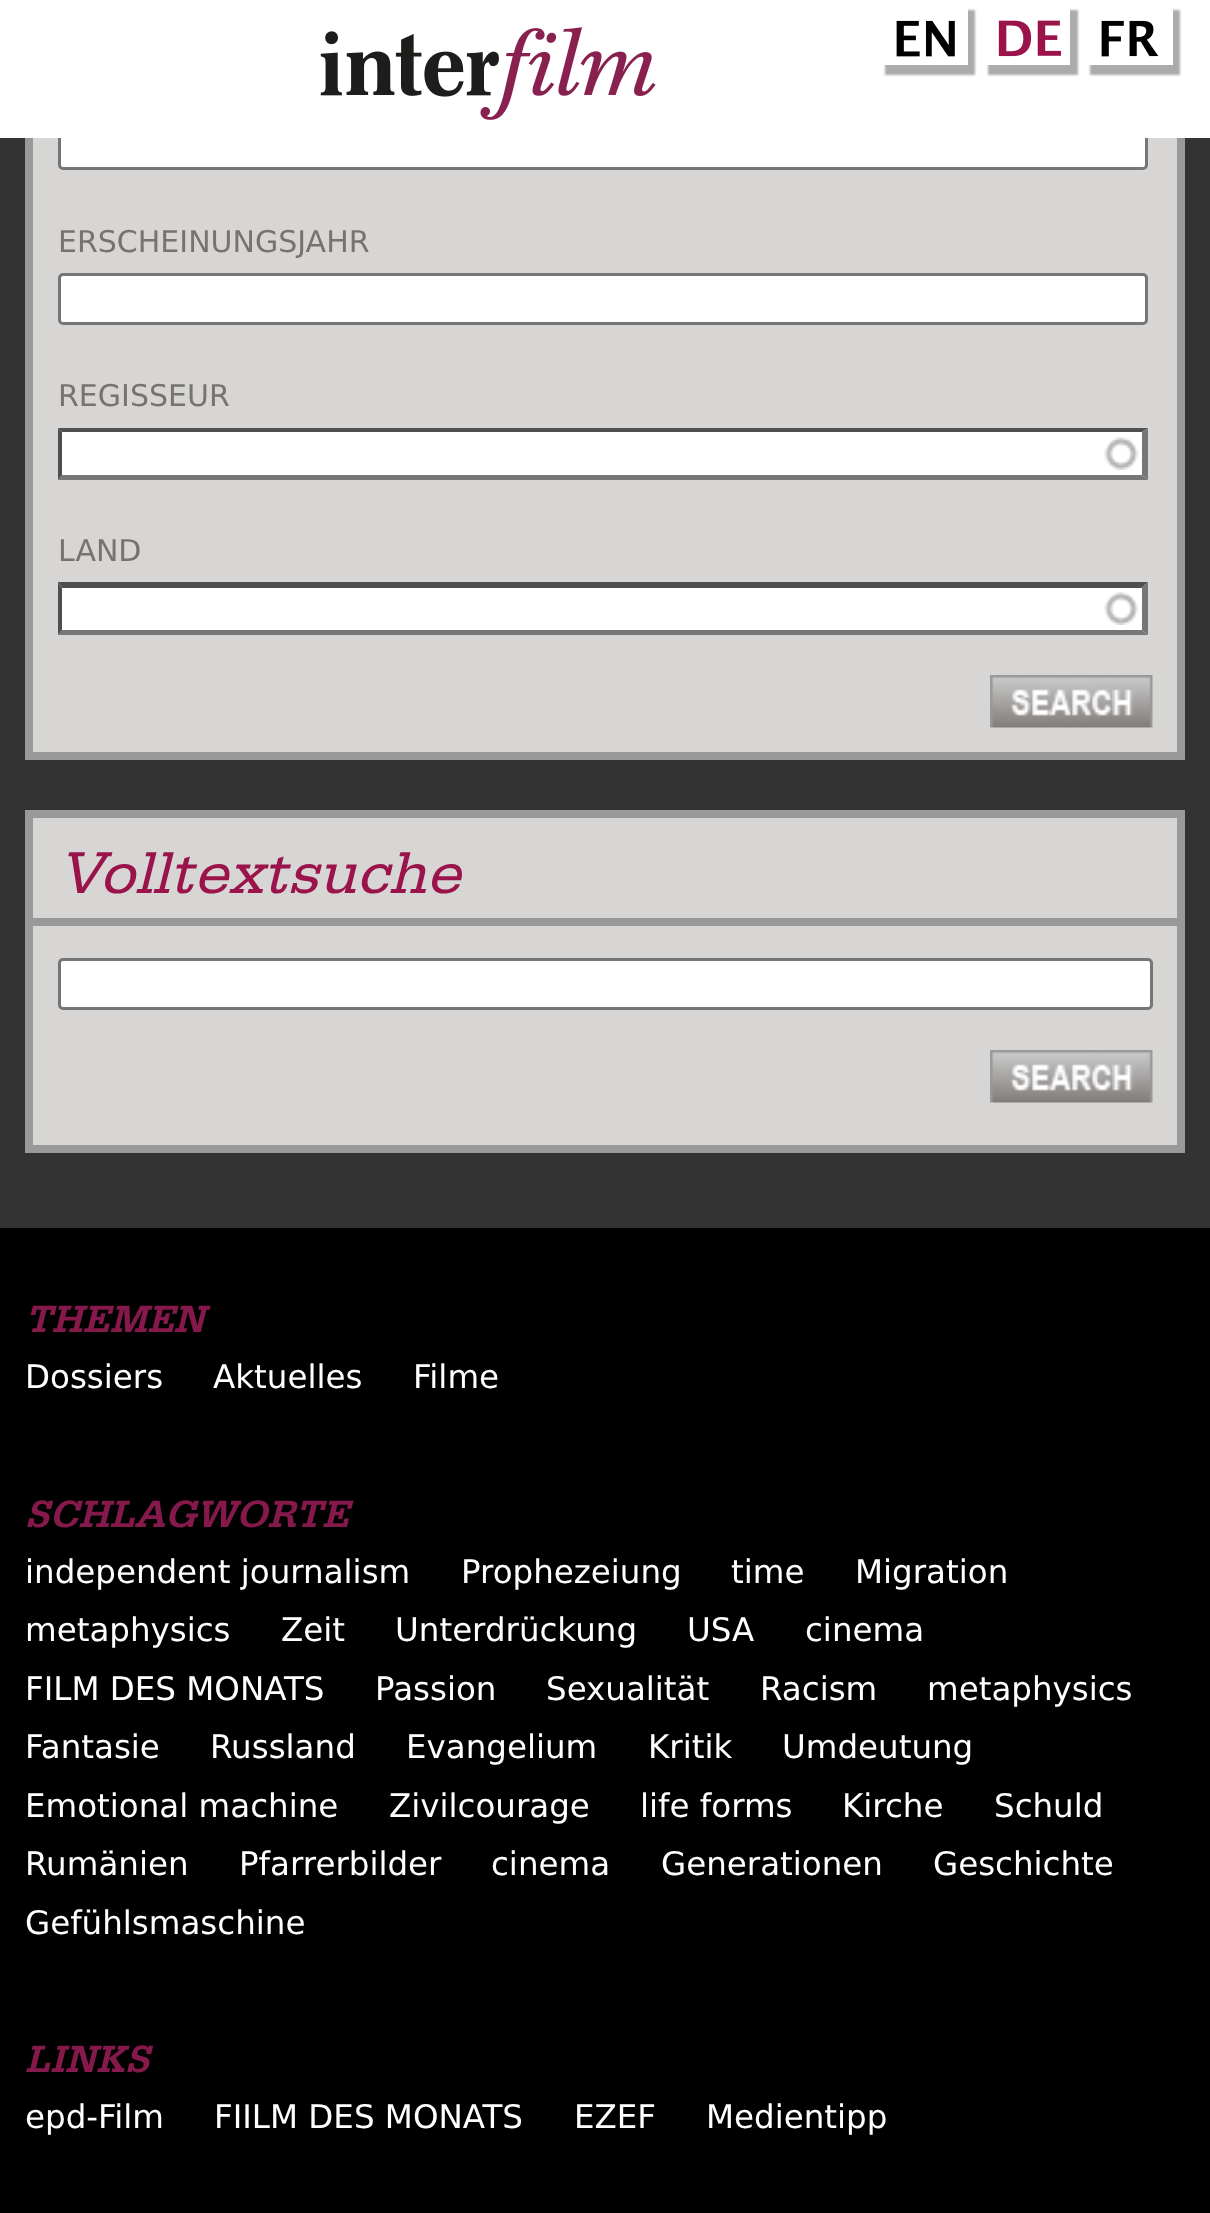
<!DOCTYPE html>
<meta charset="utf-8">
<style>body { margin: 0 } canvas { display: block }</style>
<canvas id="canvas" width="1210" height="2213"></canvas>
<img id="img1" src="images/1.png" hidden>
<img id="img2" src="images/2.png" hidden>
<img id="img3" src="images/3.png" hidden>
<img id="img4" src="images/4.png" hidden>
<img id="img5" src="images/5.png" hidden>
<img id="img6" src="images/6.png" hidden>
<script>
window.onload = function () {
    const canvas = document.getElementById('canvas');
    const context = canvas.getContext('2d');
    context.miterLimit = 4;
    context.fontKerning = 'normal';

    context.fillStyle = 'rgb(51, 51, 51)';
    context.fillRect(0, 0, 1210, 2213);
    context.fillStyle = 'rgb(215, 214, 213)';
    context.fillRect(33, 138, 1144, 614);
    context.strokeStyle = 'rgb(153, 153, 153)';
    context.lineWidth = 8;
    context.strokeRect(29, -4, 1152, 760);
    context.fillStyle = 'rgb(255, 255, 255)';
    context.beginPath();
    context.roundRect(59.5, 119.5, 1087, 49, 3.5);
    context.fill();
    context.strokeStyle = 'rgb(118, 118, 118)';
    context.lineWidth = 3;
    context.stroke();
    context.fillRect(0, 0, 1210, 138);
    context.drawImage(document.getElementById('img1'), 320, 27, 336, 93);
    context.save();
    context.beginPath();
    context.moveTo(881, 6);
    context.lineTo(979, 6);
    context.lineTo(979, 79);
    context.lineTo(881, 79);
    context.closePath();
    context.moveTo(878, 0);
    context.lineTo(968, 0);
    context.lineTo(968, 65);
    context.lineTo(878, 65);
    context.closePath();
    context.clip('evenodd');
    context.fillStyle = 'rgb(171, 171, 171)';
    context.filter = 'blur(1px)';
    context.beginPath();
    context.rect(885, 10, 90, 65);
    context.fill();
    context.filter = 'none';
    context.restore();
    context.drawImage(document.getElementById('img2'), 896, 20, 59, 37);
    context.save();
    context.beginPath();
    context.moveTo(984, 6);
    context.lineTo(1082, 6);
    context.lineTo(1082, 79);
    context.lineTo(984, 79);
    context.closePath();
    context.moveTo(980, 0);
    context.lineTo(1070, 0);
    context.lineTo(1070, 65);
    context.lineTo(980, 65);
    context.closePath();
    context.clip('evenodd');
    context.fillStyle = 'rgb(171, 171, 171)';
    context.filter = 'blur(1px)';
    context.beginPath();
    context.rect(988, 10, 90, 65);
    context.fill();
    context.filter = 'none';
    context.restore();
    context.drawImage(document.getElementById('img3'), 998, 20, 64, 37);
    context.save();
    context.beginPath();
    context.moveTo(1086, 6);
    context.lineTo(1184, 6);
    context.lineTo(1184, 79);
    context.lineTo(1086, 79);
    context.closePath();
    context.moveTo(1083, 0);
    context.lineTo(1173, 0);
    context.lineTo(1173, 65);
    context.lineTo(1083, 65);
    context.closePath();
    context.clip('evenodd');
    context.fillStyle = 'rgb(171, 171, 171)';
    context.filter = 'blur(1px)';
    context.beginPath();
    context.rect(1090, 10, 90, 65);
    context.fill();
    context.filter = 'none';
    context.restore();
    context.drawImage(document.getElementById('img4'), 1101, 20, 58, 37);
    context.beginPath();
    context.roundRect(59.5, 274.5, 1087, 49, 3.5);
    context.fill();
    context.stroke();
    context.fillRect(58, 428, 1090, 52);
    context.drawImage(document.getElementById('img5'), 1104, 437, 35, 33);
    context.fillStyle = 'rgb(79, 79, 79)';
    context.beginPath();
    context.moveTo(58, 428);
    context.lineTo(1148, 428);
    context.lineTo(1142, 432);
    context.lineTo(62, 432);
    context.closePath();
    context.fill();
    context.fillStyle = 'rgb(118, 118, 118)';
    context.beginPath();
    context.moveTo(1148, 428);
    context.lineTo(1148, 480);
    context.lineTo(1142, 475);
    context.lineTo(1142, 432);
    context.closePath();
    context.fill();
    context.beginPath();
    context.moveTo(1148, 480);
    context.lineTo(58, 480);
    context.lineTo(62, 475);
    context.lineTo(1142, 475);
    context.closePath();
    context.fill();
    context.fillStyle = 'rgb(79, 79, 79)';
    context.beginPath();
    context.moveTo(58, 480);
    context.lineTo(58, 428);
    context.lineTo(62, 432);
    context.lineTo(62, 475);
    context.closePath();
    context.fill();
    context.fillStyle = 'rgb(255, 255, 255)';
    context.fillRect(58, 583, 1090, 52);
    context.drawImage(document.getElementById('img5'), 1104, 592, 35, 33);
    context.fillStyle = 'rgb(79, 79, 79)';
    context.beginPath();
    context.moveTo(58, 582);
    context.lineTo(1148, 582);
    context.lineTo(1142, 588);
    context.lineTo(62, 588);
    context.closePath();
    context.fill();
    context.fillStyle = 'rgb(118, 118, 118)';
    context.beginPath();
    context.moveTo(1148, 582);
    context.lineTo(1148, 635);
    context.lineTo(1142, 630);
    context.lineTo(1142, 588);
    context.closePath();
    context.fill();
    context.beginPath();
    context.moveTo(1148, 635);
    context.lineTo(58, 635);
    context.lineTo(62, 630);
    context.lineTo(1142, 630);
    context.closePath();
    context.fill();
    context.fillStyle = 'rgb(79, 79, 79)';
    context.beginPath();
    context.moveTo(58, 635);
    context.lineTo(58, 582);
    context.lineTo(62, 588);
    context.lineTo(62, 630);
    context.closePath();
    context.fill();
    context.drawImage(document.getElementById('img6'), 990, 675, 163, 53);
    context.fillStyle = 'rgb(215, 214, 213)';
    context.beginPath();
    context.rect(29, 814, 1152, 335);
    context.fill();
    context.strokeStyle = 'rgb(153, 153, 153)';
    context.lineWidth = 8;
    context.stroke();
    context.fillStyle = 'rgb(153, 153, 153)';
    context.fillRect(33, 918, 1145, 8);
    context.fillStyle = 'rgb(255, 255, 255)';
    context.beginPath();
    context.roundRect(59.5, 959.5, 1092, 49, 3.5);
    context.fill();
    context.strokeStyle = 'rgb(118, 118, 118)';
    context.lineWidth = 3;
    context.stroke();
    context.drawImage(document.getElementById('img6'), 990, 1050, 163, 53);
    context.fillStyle = 'rgb(0, 0, 0)';
    context.fillRect(0, 1228, 1210, 985);
    context.font = '30px DejaVu Sans';
    context.fillStyle = 'rgb(118, 116, 114)';
    context.fillText('ERSCHEINUNGSJAHR', 58, 252);
    context.fillText('REGISSEUR', 58, 406);
    context.fillText('LAND', 58, 561);
    context.font = 'italic 62.5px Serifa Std';
    context.fillStyle = 'rgb(155, 19, 75)';
    context.fillText('Volltextsuche', 58, 893);
    context.font = 'italic bold 40px Serifa Std';
    context.fillStyle = 'rgb(133, 25, 76)';
    context.fillText('THEMEN', 25, 1332);
    context.font = '32.5px DejaVu Sans';
    context.fillStyle = 'rgb(255, 255, 255)';
    context.fillText('Dossiers', 25, 1388);
    context.fillText('Aktuelles', 213, 1388);
    context.fillText('Filme', 413, 1388);
    context.font = 'italic bold 40px Serifa Std';
    context.fillStyle = 'rgb(133, 25, 76)';
    context.fillText('SCHLAGWORTE', 25, 1527);
    context.font = '32.5px DejaVu Sans';
    context.fillStyle = 'rgb(255, 255, 255)';
    context.fillText('independent journalism', 25, 1583);
    context.fillText('Prophezeiung', 461, 1583);
    context.fillText('time', 731, 1583);
    context.fillText('Migration', 855, 1583);
    context.fillText('metaphysics', 25, 1641);
    context.fillText('Zeit', 281, 1641);
    context.fillText('Unterdrückung', 395, 1641);
    context.fillText('USA', 687, 1641);
    context.fillText('cinema', 805, 1641);
    context.fillText('FILM DES MONATS', 25, 1700);
    context.fillText('Passion', 375, 1700);
    context.fillText('Sexualität', 546, 1700);
    context.fillText('Racism', 760, 1700);
    context.fillText('metaphysics', 927, 1700);
    context.fillText('Fantasie', 25, 1758);
    context.fillText('Russland', 210, 1758);
    context.fillText('Evangelium', 406, 1758);
    context.fillText('Kritik', 648, 1758);
    context.fillText('Umdeutung', 782, 1758);
    context.fillText('Emotional machine', 25, 1817);
    context.fillText('Zivilcourage', 389, 1817);
    context.fillText('life forms', 640, 1817);
    context.fillText('Kirche', 842, 1817);
    context.fillText('Schuld', 994, 1817);
    context.fillText('Rumänien', 25, 1875);
    context.fillText('Pfarrerbilder', 239, 1875);
    context.fillText('cinema', 491, 1875);
    context.fillText('Generationen', 661, 1875);
    context.fillText('Geschichte', 933, 1875);
    context.fillText('Gefühlsmaschine', 25, 1934);
    context.font = 'italic bold 40px Serifa Std';
    context.fillStyle = 'rgb(133, 25, 76)';
    context.fillText('LINKS', 25, 2072);
    context.font = '32.5px DejaVu Sans';
    context.fillStyle = 'rgb(255, 255, 255)';
    context.fillText('epd-Film', 25, 2128);
    context.fillText('FIILM DES MONATS', 214, 2128);
    context.fillText('EZEF', 574, 2128);
    context.fillText('Medientipp', 706, 2128);
};
</script>
